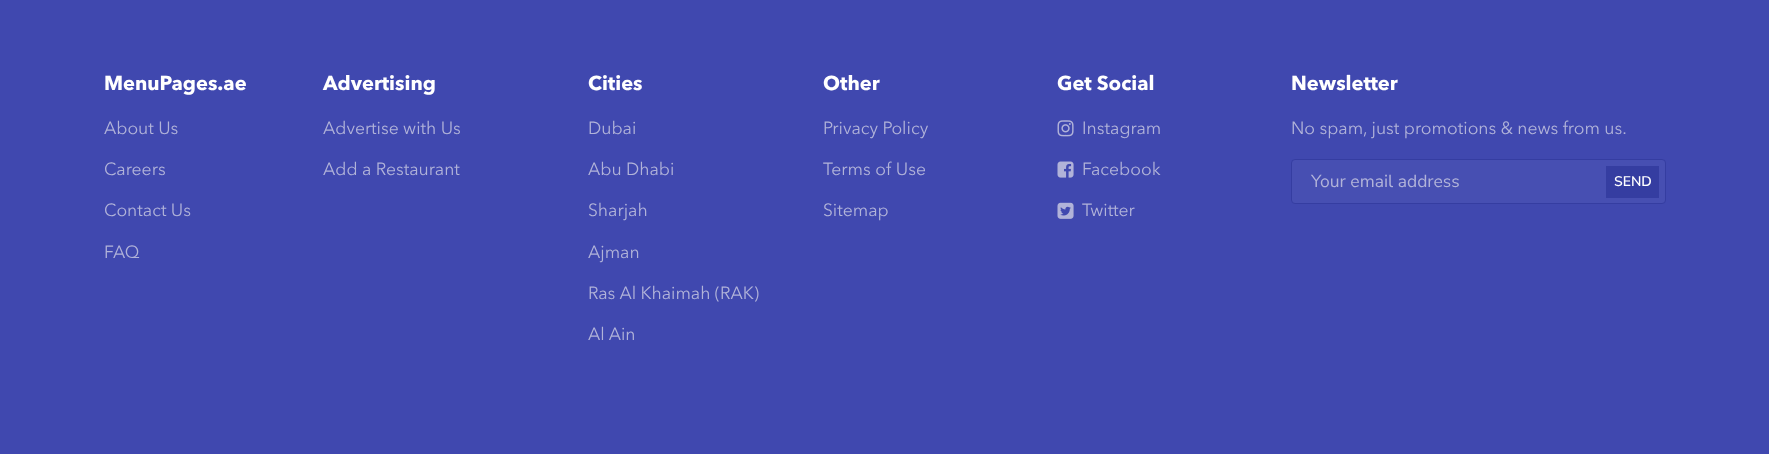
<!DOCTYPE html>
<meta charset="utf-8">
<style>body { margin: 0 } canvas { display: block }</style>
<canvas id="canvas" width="1769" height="454"></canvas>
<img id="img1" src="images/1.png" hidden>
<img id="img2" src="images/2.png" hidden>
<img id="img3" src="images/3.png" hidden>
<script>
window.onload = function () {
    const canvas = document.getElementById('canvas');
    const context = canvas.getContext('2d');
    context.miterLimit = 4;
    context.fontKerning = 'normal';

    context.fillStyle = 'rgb(64, 72, 175)';
    context.fillRect(0, 0, 1769, 454);
    context.drawImage(document.getElementById('img1'), 1057, 120, 17, 17);
    context.drawImage(document.getElementById('img2'), 1057, 161, 17, 17);
    context.drawImage(document.getElementById('img3'), 1057, 202, 17, 17);
    context.fillStyle = 'rgb(71, 79, 178)';
    context.beginPath();
    context.roundRect(1291.5, 159.5, 374, 44, 3.5);
    context.fill();
    context.strokeStyle = 'rgb(53, 61, 161)';
    context.stroke();
    context.fillStyle = 'rgb(53, 61, 161)';
    context.fillRect(1606, 166, 53, 32);
    context.font = 'bold 20px Avenir Next';
    context.fillStyle = 'rgb(255, 255, 255)';
    context.fillText('MenuPages.ae', 104, 90);
    context.font = '17.5px Avenir Next';
    context.fillStyle = 'rgb(177, 179, 217)';
    context.fillText('About Us', 104, 134);
    context.fillText('Careers', 104, 175);
    context.fillText('Contact Us', 104, 216);
    context.fillText('FAQ', 104, 258);
    context.font = 'bold 20px Avenir Next';
    context.fillStyle = 'rgb(255, 255, 255)';
    context.fillText('Advertising', 323, 90);
    context.font = '17.5px Avenir Next';
    context.fillStyle = 'rgb(177, 179, 217)';
    context.fillText('Advertise with Us', 323, 134);
    context.fillText('Add a Restaurant', 323, 175);
    context.font = 'bold 20px Avenir Next';
    context.fillStyle = 'rgb(255, 255, 255)';
    context.fillText('Cities', 588, 90);
    context.font = '17.5px Avenir Next';
    context.fillStyle = 'rgb(177, 179, 217)';
    context.fillText('Dubai', 588, 134);
    context.fillText('Abu Dhabi', 588, 175);
    context.fillText('Sharjah', 588, 216);
    context.fillText('Ajman', 588, 258);
    context.fillText('Ras Al Khaimah (RAK)', 588, 299);
    context.fillText('Al Ain', 588, 340);
    context.font = 'bold 20px Avenir Next';
    context.fillStyle = 'rgb(255, 255, 255)';
    context.fillText('Other', 823, 90);
    context.font = '17.5px Avenir Next';
    context.fillStyle = 'rgb(177, 179, 217)';
    context.fillText('Privacy Policy', 823, 134);
    context.fillText('Terms of Use', 823, 175);
    context.fillText('Sitemap', 823, 216);
    context.font = 'bold 20px Avenir Next';
    context.fillStyle = 'rgb(255, 255, 255)';
    context.fillText('Get Social', 1057, 90);
    context.font = '17.5px Avenir Next';
    context.fillStyle = 'rgb(177, 179, 217)';
    context.fillText('Instagram', 1082, 134);
    context.fillText('Facebook', 1082, 175);
    context.fillText('Twitter', 1082, 216);
    context.font = 'bold 20px Avenir Next';
    context.fillStyle = 'rgb(255, 255, 255)';
    context.fillText('Newsletter', 1291, 90);
    context.font = '17.5px Avenir Next';
    context.fillStyle = 'rgb(177, 179, 217)';
    context.fillText('No spam, just promotions & news from us.', 1291, 134);
    context.font = '17.5px Nunito Sans';
    context.fillText('Your email address', 1311, 187);
    context.font = '600 14px Nunito Sans';
    context.fillStyle = 'rgb(255, 255, 255)';
    context.fillText('SEND', 1614, 186);
};
</script>
